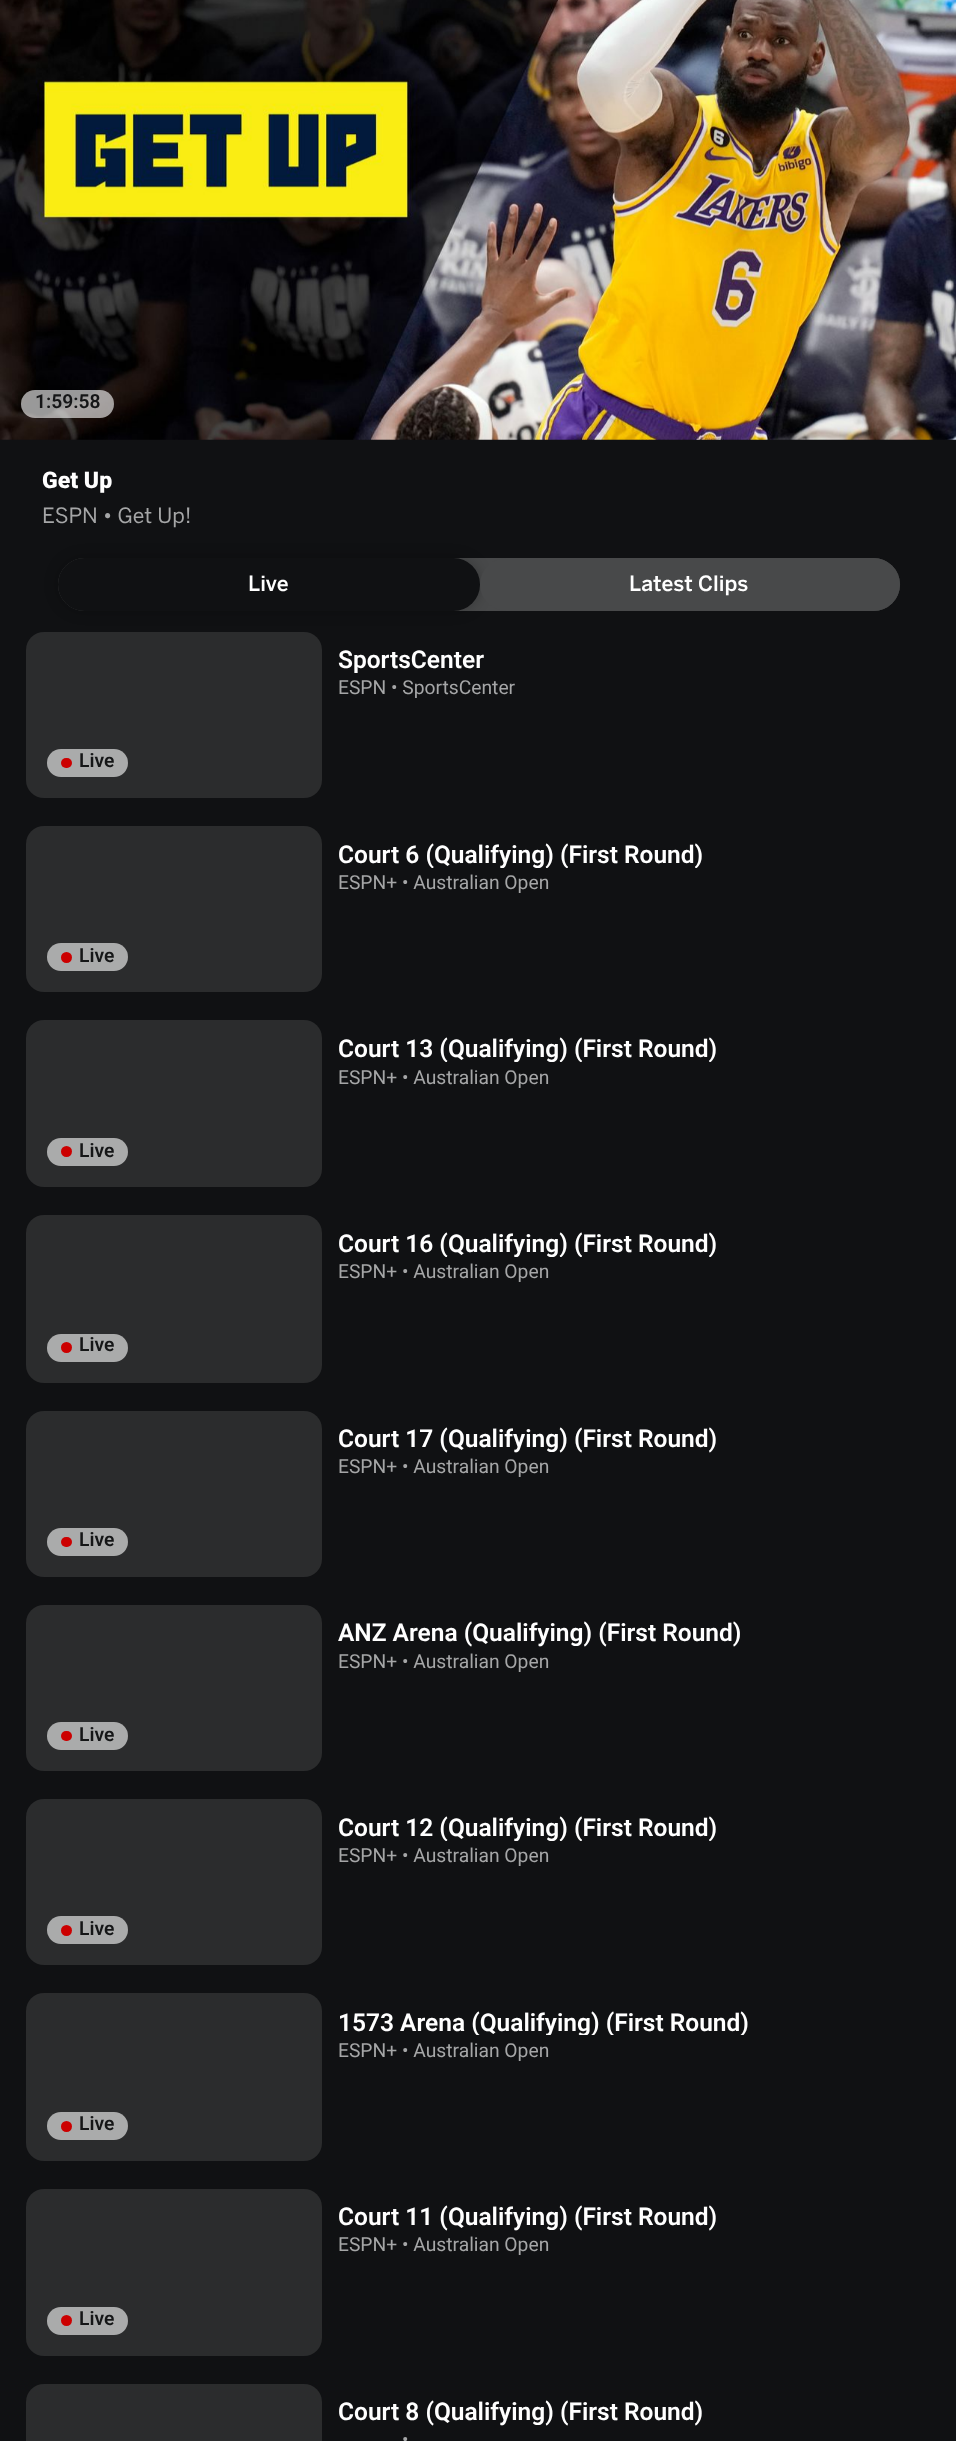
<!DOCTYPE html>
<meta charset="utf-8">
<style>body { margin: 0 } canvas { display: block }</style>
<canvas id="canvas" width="956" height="2441"></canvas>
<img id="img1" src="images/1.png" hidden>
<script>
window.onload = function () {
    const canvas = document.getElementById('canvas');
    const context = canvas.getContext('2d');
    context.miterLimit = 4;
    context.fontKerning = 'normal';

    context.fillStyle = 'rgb(16, 17, 19)';
    context.fillRect(0, 0, 956, 2441);
    context.drawImage(document.getElementById('img1'), 0, 0, 956, 440);
    context.fillStyle = 'rgba(255, 255, 255, 0.6)';
    context.beginPath();
    context.roundRect(21, 390, 93, 28, 14);
    context.fill();
    context.fillStyle = 'rgb(72, 73, 74)';
    context.beginPath();
    context.roundRect(58, 558, 842, 53, 26.5);
    context.fill();
    context.fillStyle = 'rgba(0, 0, 0, 0.25)';
    context.filter = 'blur(7px)';
    context.beginPath();
    context.roundRect(58, 558, 422, 53, 26.5);
    context.fill();
    context.filter = 'none';
    context.fillStyle = 'rgb(16, 17, 19)';
    context.beginPath();
    context.roundRect(58, 558, 422, 53, 26.5);
    context.fill();
    context.fillStyle = 'rgb(72, 73, 74)';
    context.beginPath();
    context.roundRect(480, 558, 420, 53, 26.5);
    context.fill();
    context.fillStyle = 'rgb(43, 44, 45)';
    context.beginPath();
    context.roundRect(26, 632, 296, 166, 18);
    context.fill();
    context.fillStyle = 'rgb(170, 171, 171)';
    context.beginPath();
    context.roundRect(47, 749, 81, 28, 14);
    context.fill();
    context.fillStyle = 'rgb(204, 0, 0)';
    context.beginPath();
    context.roundRect(61, 758, 11, 10, 5);
    context.fill();
    context.fillStyle = 'rgb(43, 44, 45)';
    context.beginPath();
    context.roundRect(26, 826, 296, 166, 18);
    context.fill();
    context.fillStyle = 'rgb(170, 171, 171)';
    context.beginPath();
    context.roundRect(47, 943, 81, 28, 14);
    context.fill();
    context.fillStyle = 'rgb(204, 0, 0)';
    context.beginPath();
    context.arc(66.5, 957.5, 5.5, 0, 2 * Math.PI);
    context.fill();
    context.fillStyle = 'rgb(43, 44, 45)';
    context.beginPath();
    context.roundRect(26, 1020, 296, 167, 18);
    context.fill();
    context.fillStyle = 'rgb(170, 171, 171)';
    context.beginPath();
    context.roundRect(47, 1138, 81, 28, 14);
    context.fill();
    context.fillStyle = 'rgb(204, 0, 0)';
    context.beginPath();
    context.arc(66.5, 1151.5, 5.5, 0, 2 * Math.PI);
    context.fill();
    context.fillStyle = 'rgb(43, 44, 45)';
    context.beginPath();
    context.roundRect(26, 1215, 296, 168, 18);
    context.fill();
    context.fillStyle = 'rgb(170, 171, 171)';
    context.beginPath();
    context.roundRect(47, 1334, 81, 28, 14);
    context.fill();
    context.fillStyle = 'rgb(204, 0, 0)';
    context.beginPath();
    context.arc(66.5, 1347.5, 5.5, 0, 2 * Math.PI);
    context.fill();
    context.fillStyle = 'rgb(43, 44, 45)';
    context.beginPath();
    context.roundRect(26, 1411, 296, 166, 18);
    context.fill();
    context.fillStyle = 'rgb(170, 171, 171)';
    context.beginPath();
    context.roundRect(47, 1528, 81, 28, 14);
    context.fill();
    context.fillStyle = 'rgb(204, 0, 0)';
    context.beginPath();
    context.roundRect(61, 1537, 11, 10, 5);
    context.fill();
    context.fillStyle = 'rgb(43, 44, 45)';
    context.beginPath();
    context.roundRect(26, 1605, 296, 166, 18);
    context.fill();
    context.fillStyle = 'rgb(170, 171, 171)';
    context.beginPath();
    context.roundRect(47, 1722, 81, 28, 14);
    context.fill();
    context.fillStyle = 'rgb(204, 0, 0)';
    context.beginPath();
    context.roundRect(61, 1731, 11, 10, 5);
    context.fill();
    context.fillStyle = 'rgb(43, 44, 45)';
    context.beginPath();
    context.roundRect(26, 1799, 296, 166, 18);
    context.fill();
    context.fillStyle = 'rgb(170, 171, 171)';
    context.beginPath();
    context.roundRect(47, 1916, 81, 28, 14);
    context.fill();
    context.fillStyle = 'rgb(204, 0, 0)';
    context.beginPath();
    context.arc(66.5, 1930.5, 5.5, 0, 2 * Math.PI);
    context.fill();
    context.fillStyle = 'rgb(43, 44, 45)';
    context.beginPath();
    context.roundRect(26, 1993, 296, 168, 18);
    context.fill();
    context.fillStyle = 'rgb(170, 171, 171)';
    context.beginPath();
    context.roundRect(47, 2112, 81, 28, 14);
    context.fill();
    context.fillStyle = 'rgb(204, 0, 0)';
    context.beginPath();
    context.arc(66.5, 2126.5, 5.5, 0, 2 * Math.PI);
    context.fill();
    context.fillStyle = 'rgb(43, 44, 45)';
    context.beginPath();
    context.roundRect(26, 2189, 296, 167, 18);
    context.fill();
    context.fillStyle = 'rgb(170, 171, 171)';
    context.beginPath();
    context.roundRect(47, 2307, 81, 28, 14);
    context.fill();
    context.fillStyle = 'rgb(204, 0, 0)';
    context.beginPath();
    context.arc(66.5, 2320.5, 5.5, 0, 2 * Math.PI);
    context.fill();
    context.fillStyle = 'rgb(43, 44, 45)';
    context.beginPath();
    context.roundRect(26, 2384, 296, 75, 18);
    context.fill();
    context.font = '600 19.25px Roboto';
    context.fillStyle = 'rgb(21, 22, 23)';
    context.fillText('1:59:58', 35, 408);
    context.font = '900 23px Roboto';
    context.fillStyle = 'rgb(255, 255, 255)';
    context.fillText('Get Up', 42, 488);
    context.font = '21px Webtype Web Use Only';
    context.fillStyle = 'rgb(165, 166, 167)';
    context.fillText('ESPN • Get Up!', 42, 523);
    context.font = '500 21px Webtype Web Use Only';
    context.fillStyle = 'rgb(255, 255, 255)';
    context.fillText('Live', 248, 591);
    context.fillText('Latest Clips', 629, 591);
    context.font = '600 24.5px Roboto';
    context.fillText('SportsCenter', 338, 668);
    context.font = '19.25px Roboto';
    context.fillStyle = 'rgb(165, 166, 167)';
    context.fillText('ESPN • SportsCenter', 338, 694);
    context.font = '600 19.25px Roboto';
    context.fillStyle = 'rgb(21, 22, 23)';
    context.fillText('Live', 79, 767);
    context.save();
    context.beginPath();
    context.rect(338, 840, 366, 28);
    context.clip();
    context.font = '600 24.5px Roboto';
    context.fillStyle = 'rgb(255, 255, 255)';
    context.fillText('Court 6 (Qualifying) (First Round)', 338, 863);
    context.restore();
    context.font = '19.25px Roboto';
    context.fillStyle = 'rgb(165, 166, 167)';
    context.fillText('ESPN+ • Australian Open', 338, 889);
    context.font = '600 19.25px Roboto';
    context.fillStyle = 'rgb(21, 22, 23)';
    context.fillText('Live', 79, 962);
    context.save();
    context.beginPath();
    context.rect(338, 1034, 380, 28);
    context.clip();
    context.font = '600 24.5px Roboto';
    context.fillStyle = 'rgb(255, 255, 255)';
    context.fillText('Court 13 (Qualifying) (First Round)', 338, 1057);
    context.restore();
    context.font = '19.25px Roboto';
    context.fillStyle = 'rgb(165, 166, 167)';
    context.fillText('ESPN+ • Australian Open', 338, 1084);
    context.font = '600 19.25px Roboto';
    context.fillStyle = 'rgb(21, 22, 23)';
    context.fillText('Live', 79, 1157);
    context.save();
    context.beginPath();
    context.rect(338, 1229, 380, 28);
    context.clip();
    context.font = '600 24.5px Roboto';
    context.fillStyle = 'rgb(255, 255, 255)';
    context.fillText('Court 16 (Qualifying) (First Round)', 338, 1252);
    context.restore();
    context.font = '19.25px Roboto';
    context.fillStyle = 'rgb(165, 166, 167)';
    context.fillText('ESPN+ • Australian Open', 338, 1278);
    context.font = '600 19.25px Roboto';
    context.fillStyle = 'rgb(21, 22, 23)';
    context.fillText('Live', 79, 1351);
    context.font = '600 24.5px Roboto';
    context.fillStyle = 'rgb(255, 255, 255)';
    context.fillText('Court 17 (Qualifying) (First Round)', 338, 1447);
    context.font = '19.25px Roboto';
    context.fillStyle = 'rgb(165, 166, 167)';
    context.fillText('ESPN+ • Australian Open', 338, 1473);
    context.font = '600 19.25px Roboto';
    context.fillStyle = 'rgb(21, 22, 23)';
    context.fillText('Live', 79, 1546);
    context.font = '600 24.5px Roboto';
    context.fillStyle = 'rgb(255, 255, 255)';
    context.fillText('ANZ Arena (Qualifying) (First Round)', 338, 1641);
    context.font = '19.25px Roboto';
    context.fillStyle = 'rgb(165, 166, 167)';
    context.fillText('ESPN+ • Australian Open', 338, 1668);
    context.font = '600 19.25px Roboto';
    context.fillStyle = 'rgb(21, 22, 23)';
    context.fillText('Live', 79, 1741);
    context.save();
    context.beginPath();
    context.rect(338, 1813, 380, 28);
    context.clip();
    context.font = '600 24.5px Roboto';
    context.fillStyle = 'rgb(255, 255, 255)';
    context.fillText('Court 12 (Qualifying) (First Round)', 338, 1836);
    context.restore();
    context.font = '19.25px Roboto';
    context.fillStyle = 'rgb(165, 166, 167)';
    context.fillText('ESPN+ • Australian Open', 338, 1862);
    context.font = '600 19.25px Roboto';
    context.fillStyle = 'rgb(21, 22, 23)';
    context.fillText('Live', 79, 1935);
    context.save();
    context.beginPath();
    context.rect(338, 2007, 411, 28);
    context.clip();
    context.font = '600 24.5px Roboto';
    context.fillStyle = 'rgb(255, 255, 255)';
    context.fillText('1573 Arena (Qualifying) (First Round)', 338, 2031);
    context.restore();
    context.font = '19.25px Roboto';
    context.fillStyle = 'rgb(165, 166, 167)';
    context.fillText('ESPN+ • Australian Open', 338, 2057);
    context.font = '600 19.25px Roboto';
    context.fillStyle = 'rgb(21, 22, 23)';
    context.fillText('Live', 79, 2130);
    context.font = '600 24.5px Roboto';
    context.fillStyle = 'rgb(255, 255, 255)';
    context.fillText('Court 11 (Qualifying) (First Round)', 338, 2225);
    context.font = '19.25px Roboto';
    context.fillStyle = 'rgb(165, 166, 167)';
    context.fillText('ESPN+ • Australian Open', 338, 2251);
    context.font = '600 19.25px Roboto';
    context.fillStyle = 'rgb(21, 22, 23)';
    context.fillText('Live', 79, 2325);
    context.font = '600 24.5px Roboto';
    context.fillStyle = 'rgb(255, 255, 255)';
    context.fillText('Court 8 (Qualifying) (First Round)', 338, 2420);
    context.font = '19.25px Roboto';
    context.fillStyle = 'rgb(165, 166, 167)';
    context.fillText('•', 402, 2446);
};
</script>
